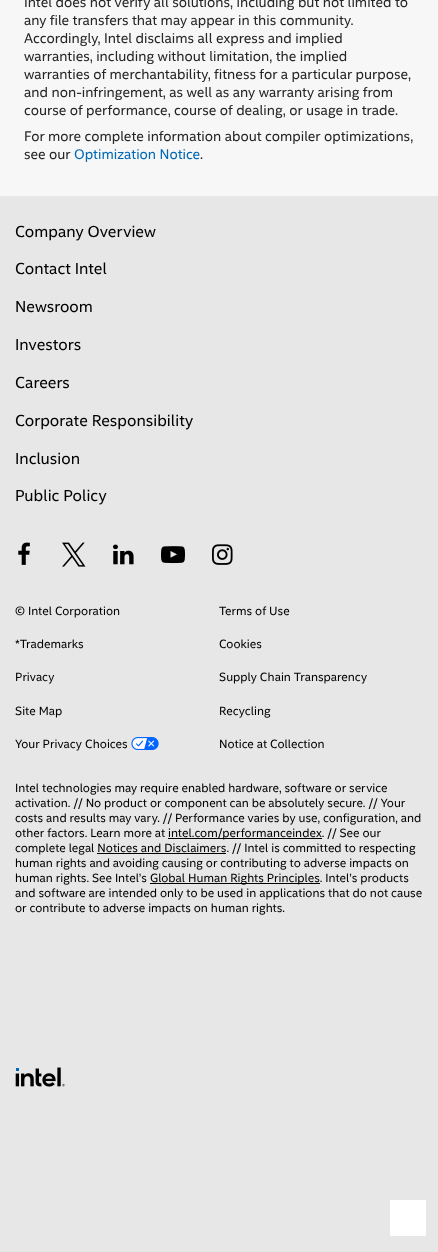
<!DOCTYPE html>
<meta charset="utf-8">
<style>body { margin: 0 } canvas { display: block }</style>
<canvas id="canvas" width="438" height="1252"></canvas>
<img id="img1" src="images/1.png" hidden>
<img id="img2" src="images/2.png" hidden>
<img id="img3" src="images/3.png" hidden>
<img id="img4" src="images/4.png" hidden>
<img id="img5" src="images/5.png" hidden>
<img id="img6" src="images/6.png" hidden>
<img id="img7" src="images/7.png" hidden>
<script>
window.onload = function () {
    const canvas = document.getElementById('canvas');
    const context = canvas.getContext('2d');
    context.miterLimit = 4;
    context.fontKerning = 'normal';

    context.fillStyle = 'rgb(247, 247, 247)';
    context.fillRect(0, 0, 438, 1252);
    context.fillStyle = 'rgb(231, 231, 231)';
    context.fillRect(0, 196, 438, 1056);
    context.fillStyle = 'rgb(255, 255, 255)';
    context.fillRect(390, 1200, 36, 36);
    context.drawImage(document.getElementById('img1'), 18, 542, 12, 23);
    context.drawImage(document.getElementById('img2'), 62, 542, 24, 25);
    context.drawImage(document.getElementById('img3'), 113, 544, 21, 21);
    context.drawImage(document.getElementById('img4'), 161, 546, 24, 18);
    context.drawImage(document.getElementById('img5'), 212, 544, 21, 21);
    context.drawImage(document.getElementById('img6'), 131, 737, 28, 13);
    context.fillStyle = 'rgb(0, 0, 0)';
    context.fillRect(168, 838, 154, 1);
    context.fillRect(97, 853, 129, 1);
    context.fillRect(150, 883, 170, 1);
    context.drawImage(document.getElementById('img7'), 15, 1067, 50, 20);
    context.font = '14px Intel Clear';
    context.fillStyle = 'rgb(38, 38, 38)';
    context.fillText('Intel does not verify all solutions, including but not limited to', 24, 7);
    context.fillText('any file transfers that may appear in this community.', 24, 25);
    context.fillText('Accordingly, Intel disclaims all express and implied', 24, 43);
    context.fillText('warranties, including without limitation, the implied', 24, 61);
    context.fillText('warranties of merchantability, fitness for a particular purpose,', 24, 79);
    context.fillText('and non-infringement, as well as any warranty arising from', 24, 97);
    context.fillText('course of performance, course of dealing, or usage in trade.', 24, 115);
    context.fillText('For more complete information about compiler optimizations,', 24, 141);
    context.fillText('see our', 24, 159);
    context.fillStyle = 'rgb(0, 104, 181)';
    context.fillText('Optimization Notice', 74, 159);
    context.fillStyle = 'rgb(38, 38, 38)';
    context.fillText('.', 200, 159);
    context.font = '16px Intel Clear';
    context.fillStyle = 'rgb(0, 0, 0)';
    context.fillText('Company Overview', 15, 237);
    context.fillText('Contact Intel', 15, 274);
    context.fillText('Newsroom', 15, 312);
    context.fillText('Investors', 15, 350);
    context.fillText('Careers', 15, 388);
    context.fillText('Corporate Responsibility', 15, 426);
    context.fillText('Inclusion', 15, 464);
    context.fillText('Public Policy', 15, 501);
    context.font = '12px Intel Clear';
    context.fillText('© Intel Corporation', 15, 615);
    context.fillText('Terms of Use', 219, 615);
    context.fillText('*Trademarks', 15, 648);
    context.fillText('Cookies', 219, 648);
    context.fillText('Privacy', 15, 681);
    context.fillText('Supply Chain Transparency', 219, 681);
    context.fillText('Site Map', 15, 715);
    context.fillText('Recycling', 219, 715);
    context.fillText('Your Privacy Choices', 15, 748);
    context.fillText('Notice at Collection', 219, 748);
    context.fillText('Intel technologies may require enabled hardware, software or service', 15, 792);
    context.fillText('activation. // No product or component can be absolutely secure. // Your', 15, 807);
    context.fillText('costs and results may vary. // Performance varies by use, configuration, and', 15, 822);
    context.fillText('other factors. Learn more at', 15, 837);
    context.fillText('intel.com/performanceindex. // See our', 168, 837);
    context.fillText('complete legal Notices and Disclaimers. // Intel is committed to respecting', 15, 852);
    context.fillText('human rights and avoiding causing or contributing to adverse impacts on', 15, 867);
    context.fillText('human rights. See Intel’s', 15, 882);
    context.fillText('Global Human Rights Principles. Intel’s products', 150, 882);
    context.fillText('and software are intended only to be used in applications that do not cause', 15, 897);
    context.fillText('or contribute to adverse impacts on human rights.', 15, 912);
};
</script>
